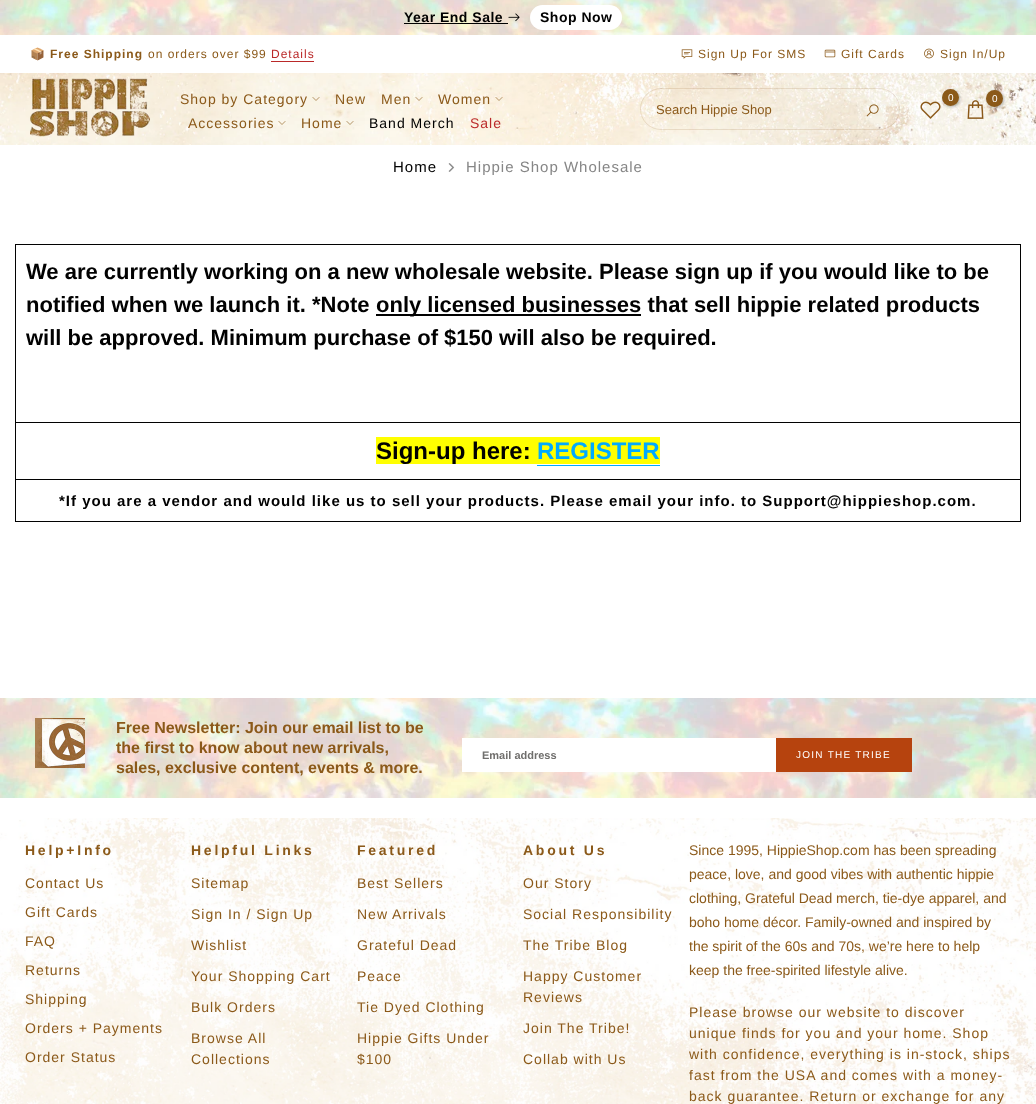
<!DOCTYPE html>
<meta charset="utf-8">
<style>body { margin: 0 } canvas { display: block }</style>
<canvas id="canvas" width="1036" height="1104"></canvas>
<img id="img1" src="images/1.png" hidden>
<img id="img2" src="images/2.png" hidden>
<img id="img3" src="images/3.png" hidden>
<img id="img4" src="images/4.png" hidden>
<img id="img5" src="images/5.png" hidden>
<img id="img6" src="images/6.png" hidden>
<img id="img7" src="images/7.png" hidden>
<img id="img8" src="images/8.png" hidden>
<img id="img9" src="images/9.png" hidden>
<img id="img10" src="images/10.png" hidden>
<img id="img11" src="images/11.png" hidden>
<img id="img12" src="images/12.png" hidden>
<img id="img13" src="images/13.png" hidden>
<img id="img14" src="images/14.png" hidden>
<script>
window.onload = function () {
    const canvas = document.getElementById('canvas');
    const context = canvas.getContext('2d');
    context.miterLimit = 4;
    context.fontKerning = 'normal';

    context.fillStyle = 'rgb(255, 255, 255)';
    context.fillRect(0, 0, 1036, 1104);
    context.drawImage(document.getElementById('img1'), 0, 0, 1036, 35);
    context.fillStyle = 'rgb(1, 1, 1)';
    context.fillRect(404, 23, 104, 1);
    context.drawImage(document.getElementById('img2'), 508, 13, 12, 9);
    context.fillStyle = 'rgb(255, 255, 255)';
    context.beginPath();
    context.roundRect(530, 5, 92, 25, 12.5);
    context.fill();
    context.fillStyle = 'rgb(186, 41, 41)';
    context.fillRect(271, 61, 43, 1);
    context.drawImage(document.getElementById('img3'), 681, 49, 12, 10);
    context.drawImage(document.getElementById('img4'), 824, 49, 12, 9);
    context.drawImage(document.getElementById('img5'), 924, 48, 10, 11);
    context.drawImage(document.getElementById('img6'), 0, 73, 1036, 72);
    context.drawImage(document.getElementById('img7'), 30, 78, 120, 59);
    context.beginPath();
    context.moveTo(319, 97.5);
    context.lineTo(316, 100.5);
    context.lineTo(313, 97.5);
    context.strokeStyle = 'rgb(161, 120, 66)';
    context.lineWidth = 0.8;
    context.lineCap = 'square';
    context.stroke();
    context.beginPath();
    context.moveTo(422, 97.5);
    context.lineTo(419, 100.5);
    context.lineTo(416, 97.5);
    context.strokeStyle = 'rgba(139, 89, 25, 0.8)';
    context.stroke();
    context.beginPath();
    context.moveTo(502, 97.5);
    context.lineTo(499, 100.5);
    context.lineTo(496, 97.5);
    context.stroke();
    context.beginPath();
    context.moveTo(285, 121.5);
    context.lineTo(282, 124.5);
    context.lineTo(279, 121.5);
    context.stroke();
    context.beginPath();
    context.moveTo(353, 121.5);
    context.lineTo(350, 124.5);
    context.lineTo(347, 121.5);
    context.stroke();
    context.drawImage(document.getElementById('img8'), 920, 101, 21, 18);
    context.fillStyle = 'rgba(0, 0, 0, 0.3)';
    context.filter = 'blur(1.5px)';
    context.beginPath();
    context.roundRect(943, 90, 17, 17, 8.5);
    context.fill();
    context.filter = 'none';
    context.fillStyle = 'rgb(139, 89, 25)';
    context.beginPath();
    context.arc(950.5, 97.5, 8.5, 0, 2 * Math.PI);
    context.fill();
    context.drawImage(document.getElementById('img9'), 967, 100, 17, 19);
    context.fillStyle = 'rgba(0, 0, 0, 0.3)';
    context.filter = 'blur(1.5px)';
    context.beginPath();
    context.roundRect(987, 91, 17, 17, 8.5);
    context.fill();
    context.filter = 'none';
    context.fillStyle = 'rgb(139, 89, 25)';
    context.beginPath();
    context.arc(994.5, 98.5, 8.5, 0, 2 * Math.PI);
    context.fill();
    context.beginPath();
    context.roundRect(640.5, 88.5, 259, 41, 20.5);
    context.strokeStyle = 'rgba(139, 89, 25, 0.15)';
    context.lineWidth = 1;
    context.stroke();
    context.drawImage(document.getElementById('img10'), 866, 104, 13, 13);
    context.drawImage(document.getElementById('img11'), 448, 163, 7, 9);
    context.fillStyle = 'rgb(1, 1, 1)';
    context.fillRect(15, 244, 1006, 1);
    context.fillRect(1020, 244, 1, 278);
    context.fillRect(15, 521, 1006, 1);
    context.fillRect(15, 244, 1, 278);
    context.fillRect(15, 422, 1006, 1);
    context.fillRect(376, 314, 265, 2);
    context.fillRect(15, 479, 1006, 1);
    context.fillStyle = 'rgb(255, 255, 0)';
    context.fillRect(376, 437, 284, 27);
    context.fillStyle = 'rgb(0, 170, 255)';
    context.fillRect(537, 465, 123, 1);
    context.drawImage(document.getElementById('img12'), 0, 698, 1036, 100);
    context.drawImage(document.getElementById('img13'), 35, 718, 50, 50);
    context.fillStyle = 'rgb(255, 255, 255)';
    context.fillRect(462, 738, 314, 34);
    context.fillStyle = 'rgb(182, 67, 14)';
    context.fillRect(776, 738, 136, 34);
    context.drawImage(document.getElementById('img14'), 0, 818, 1036, 286);
    context.letterSpacing = '0.5px';
    context.font = 'bold 14px Liberation Sans';
    context.fillStyle = 'rgb(1, 1, 1)';
    context.fillText('Year End Sale', 404, 22);
    context.fillText('Shop Now', 540, 22);
    context.letterSpacing = '1px';
    context.font = 'bold 12px Noto Color Emoji';
    context.fillStyle = 'rgb(139, 89, 25)';
    context.fillText('📦', 30, 58);
    context.font = 'bold 12px Liberation Sans';
    context.fillText('Free Shipping', 50, 58);
    context.font = '12px Liberation Sans';
    context.fillText('on orders over $99', 148, 58);
    context.fillStyle = 'rgb(186, 41, 41)';
    context.fillText('Details', 271, 58);
    context.fillStyle = 'rgb(139, 89, 25)';
    context.fillText('Sign Up For SMS', 698, 58);
    context.fillText('Gift Cards', 841, 58);
    context.fillText('Sign In/Up', 940, 58);
    context.font = '14px Liberation Sans';
    context.fillText('Shop by Category', 180, 104);
    context.fillText('New', 335, 104);
    context.fillText('Men', 381, 104);
    context.fillText('Women', 438, 104);
    context.fillText('Accessories', 188, 128);
    context.fillText('Home', 301, 128);
    context.fillStyle = 'rgb(1, 1, 1)';
    context.fillText('Band Merch', 369, 128);
    context.fillStyle = 'rgb(186, 41, 41)';
    context.fillText('Sale', 470, 128);
    context.letterSpacing = '0px';
    context.font = '10px Liberation Sans';
    context.fillStyle = 'rgb(255, 255, 255)';
    context.fillText('0', 948, 101);
    context.fillText('0', 992, 102);
    context.font = '13px Liberation Sans';
    context.fillStyle = 'rgb(139, 89, 25)';
    context.fillText('Search Hippie Shop', 656, 114);
    context.letterSpacing = '1px';
    context.font = '15px Liberation Sans';
    context.fillStyle = 'rgb(1, 1, 1)';
    context.fillText('Home', 393, 172);
    context.fillStyle = 'rgb(134, 134, 134)';
    context.fillText('Hippie Shop Wholesale', 466, 172);
    context.letterSpacing = '0px';
    context.font = 'bold 22px Liberation Sans';
    context.fillStyle = 'rgb(1, 1, 1)';
    context.fillText('We are currently working on a new wholesale website. Please sign up if you would like to be', 26, 279);
    context.fillText('notified when we launch it. *Note', 26, 312);
    context.fillText('only licensed businesses that sell hippie related products', 376, 312);
    context.fillText('will be approved. Minimum purchase of $150 will also be required.', 26, 345);
    context.font = 'bold 24px Liberation Sans';
    context.fillText('Sign-up here:', 376, 459);
    context.fillStyle = 'rgb(0, 170, 255)';
    context.fillText('REGISTER', 537, 459);
    context.letterSpacing = '1px';
    context.font = 'bold 15px Liberation Sans';
    context.fillStyle = 'rgb(1, 1, 1)';
    context.fillText('*If you are a vendor and would like us to sell your products. Please email your info. to Support@hippieshop.com.', 59, 506);
    context.letterSpacing = '0px';
    context.font = 'bold 16px Liberation Sans';
    context.fillStyle = 'rgb(139, 89, 25)';
    context.fillText('Free Newsletter: Join our email list to be', 116, 733);
    context.fillText('the first to know about new arrivals,', 116, 753);
    context.fillText('sales, exclusive content, events & more.', 116, 773);
    context.font = 'bold 11px Liberation Sans';
    context.fillStyle = 'rgb(112, 111, 109)';
    context.fillText('Email address', 482, 759);
    context.letterSpacing = '1.25px';
    context.font = '10px Liberation Sans';
    context.fillStyle = 'rgb(255, 255, 255)';
    context.fillText('JOIN THE TRIBE', 796, 758);
    context.letterSpacing = '2.75px';
    context.font = 'bold 14px Liberation Sans';
    context.fillStyle = 'rgb(139, 89, 25)';
    context.fillText('Help+Info', 25, 855);
    context.letterSpacing = '1px';
    context.font = '14px Liberation Sans';
    context.fillText('Contact Us', 25, 888);
    context.fillText('Gift Cards', 25, 917);
    context.fillText('FAQ', 25, 946);
    context.fillText('Returns', 25, 975);
    context.fillText('Shipping', 25, 1004);
    context.fillText('Orders + Payments', 25, 1033);
    context.fillText('Order Status', 25, 1062);
    context.letterSpacing = '2.75px';
    context.font = 'bold 14px Liberation Sans';
    context.fillText('Helpful Links', 191, 855);
    context.letterSpacing = '1px';
    context.font = '14px Liberation Sans';
    context.fillText('Sitemap', 191, 888);
    context.fillText('Sign In / Sign Up', 191, 919);
    context.fillText('Wishlist', 191, 950);
    context.fillText('Your Shopping Cart', 191, 981);
    context.fillText('Bulk Orders', 191, 1012);
    context.fillText('Browse All', 191, 1043);
    context.fillText('Collections', 191, 1064);
    context.letterSpacing = '2.75px';
    context.font = 'bold 14px Liberation Sans';
    context.fillText('Featured', 357, 855);
    context.letterSpacing = '1px';
    context.font = '14px Liberation Sans';
    context.fillText('Best Sellers', 357, 888);
    context.fillText('New Arrivals', 357, 919);
    context.fillText('Grateful Dead', 357, 950);
    context.fillText('Peace', 357, 981);
    context.fillText('Tie Dyed Clothing', 357, 1012);
    context.fillText('Hippie Gifts Under', 357, 1043);
    context.fillText('$100', 357, 1064);
    context.letterSpacing = '2.75px';
    context.font = 'bold 14px Liberation Sans';
    context.fillText('About Us', 523, 855);
    context.letterSpacing = '1px';
    context.font = '14px Liberation Sans';
    context.fillText('Our Story', 523, 888);
    context.fillText('Social Responsibility', 523, 919);
    context.fillText('The Tribe Blog', 523, 950);
    context.fillText('Happy Customer', 523, 981);
    context.fillText('Reviews', 523, 1002);
    context.fillText('Join The Tribe!', 523, 1033);
    context.fillText('Collab with Us', 523, 1064);
    context.letterSpacing = '0px';
    context.fillText('Since 1995, HippieShop.com has been spreading', 689, 855);
    context.fillText('peace, love, and good vibes with authentic hippie', 689, 879);
    context.fillText('clothing, Grateful Dead merch, tie-dye apparel, and', 689, 903);
    context.fillText('boho home décor. Family-owned and inspired by', 689, 927);
    context.fillText('the spirit of the 60s and 70s, we’re here to help', 689, 951);
    context.fillText('keep the free-spirited lifestyle alive.', 689, 975);
    context.letterSpacing = '1px';
    context.fillText('Please browse our website to discover', 689, 1017);
    context.fillText('unique finds for you and your home. Shop', 689, 1038);
    context.fillText('with confidence, everything is in-stock, ships', 689, 1059);
    context.fillText('fast from the USA and comes with a money-', 689, 1080);
    context.fillText('back guarantee. Return or exchange for any', 689, 1101);
};
</script>
